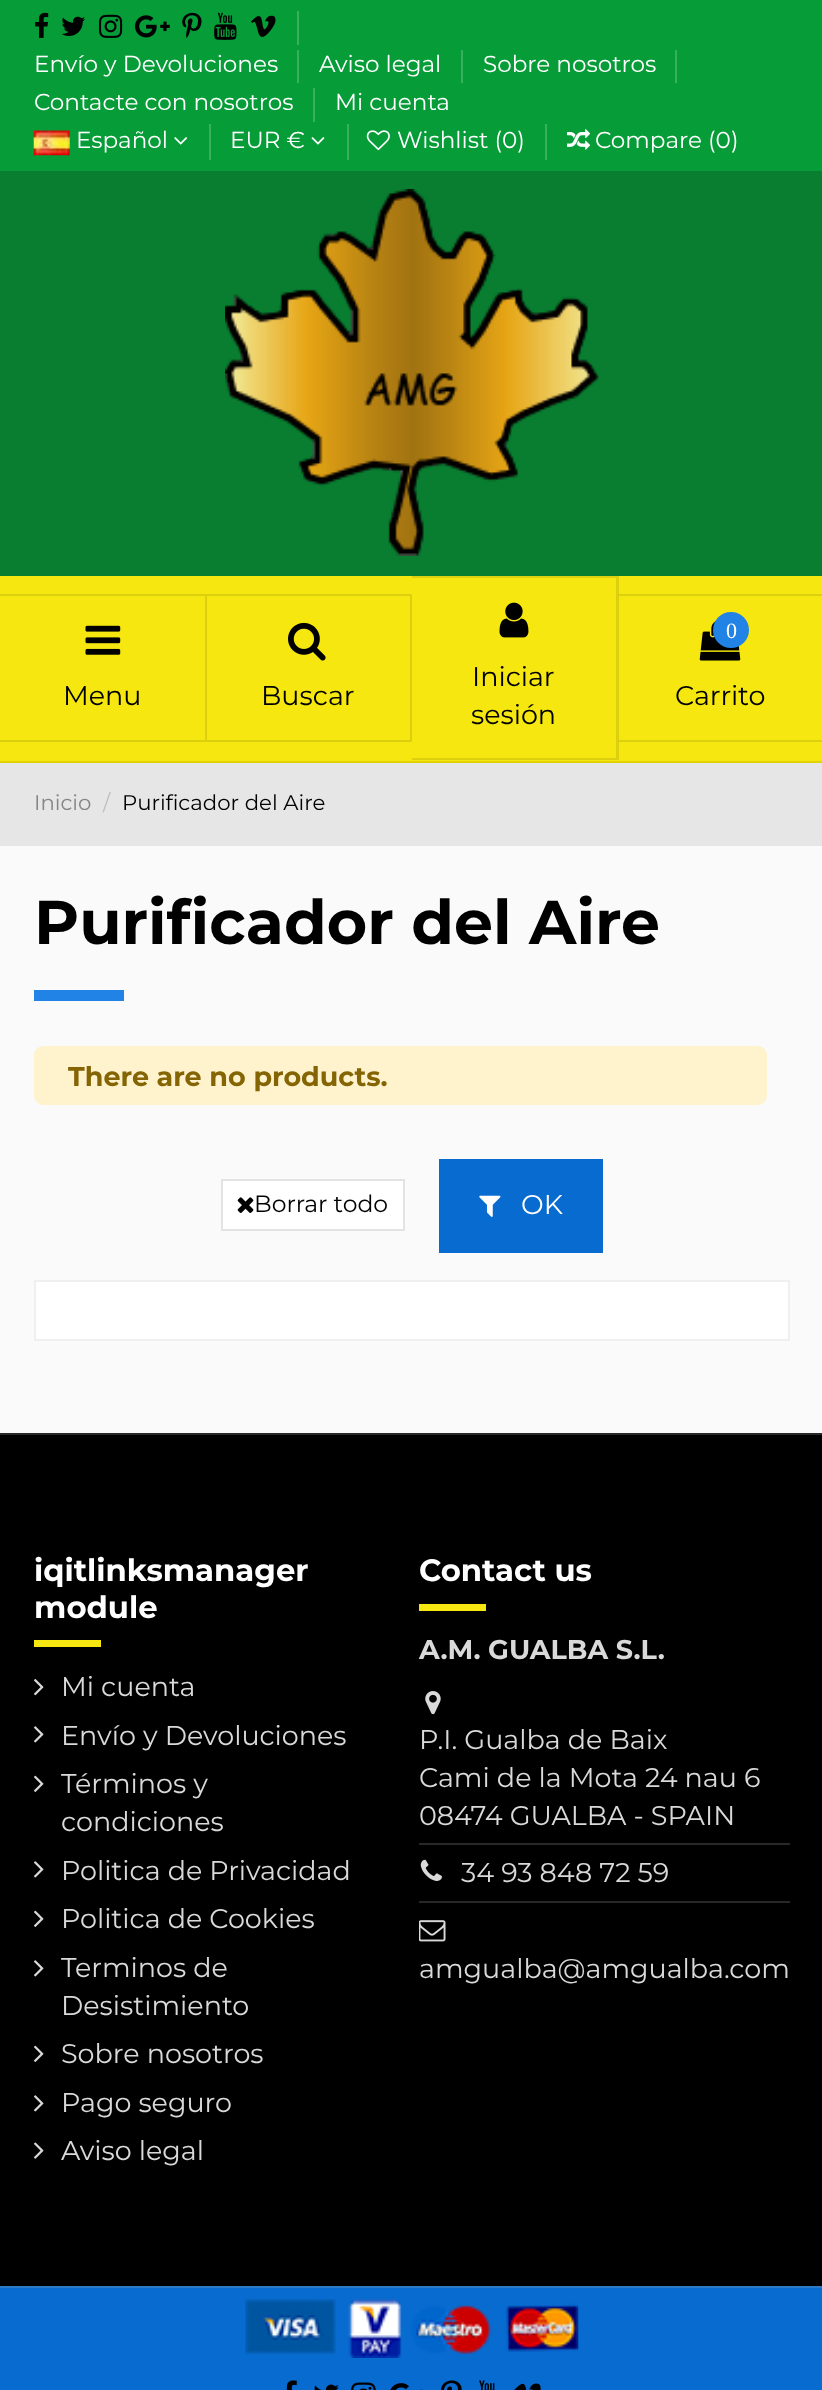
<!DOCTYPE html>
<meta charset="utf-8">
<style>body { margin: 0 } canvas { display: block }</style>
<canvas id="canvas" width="822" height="2390"></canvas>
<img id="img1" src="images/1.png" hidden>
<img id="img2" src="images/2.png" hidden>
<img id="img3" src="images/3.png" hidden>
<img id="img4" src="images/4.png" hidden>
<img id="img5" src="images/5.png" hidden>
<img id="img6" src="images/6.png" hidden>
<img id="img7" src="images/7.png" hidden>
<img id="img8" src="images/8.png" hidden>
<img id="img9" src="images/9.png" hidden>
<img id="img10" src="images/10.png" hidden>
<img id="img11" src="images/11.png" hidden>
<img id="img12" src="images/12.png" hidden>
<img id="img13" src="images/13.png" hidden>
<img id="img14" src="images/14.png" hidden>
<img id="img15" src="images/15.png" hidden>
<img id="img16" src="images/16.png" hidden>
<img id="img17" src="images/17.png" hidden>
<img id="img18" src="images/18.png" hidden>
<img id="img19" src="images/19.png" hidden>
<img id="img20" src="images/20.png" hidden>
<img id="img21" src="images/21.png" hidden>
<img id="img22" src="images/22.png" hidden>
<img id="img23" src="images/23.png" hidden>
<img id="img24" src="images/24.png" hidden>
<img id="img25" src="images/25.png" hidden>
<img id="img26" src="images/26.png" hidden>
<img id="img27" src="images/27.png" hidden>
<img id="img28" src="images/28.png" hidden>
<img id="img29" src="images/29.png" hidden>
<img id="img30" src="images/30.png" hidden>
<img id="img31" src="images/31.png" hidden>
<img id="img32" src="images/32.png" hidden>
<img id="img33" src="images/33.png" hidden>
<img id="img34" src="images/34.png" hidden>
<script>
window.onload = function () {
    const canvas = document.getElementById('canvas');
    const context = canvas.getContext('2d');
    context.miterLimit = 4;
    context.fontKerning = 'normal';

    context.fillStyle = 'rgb(250, 250, 250)';
    context.fillRect(0, 0, 822, 2390);
    context.fillStyle = 'rgb(9, 125, 48)';
    context.fillRect(0, 171, 822, 405);
    context.fillStyle = 'rgb(6, 156, 56)';
    context.fillRect(0, 0, 822, 171);
    context.drawImage(document.getElementById('img1'), 35, 12, 14, 26);
    context.drawImage(document.getElementById('img2'), 61, 16, 24, 20);
    context.drawImage(document.getElementById('img3'), 99, 14, 24, 24);
    context.drawImage(document.getElementById('img4'), 135, 15, 35, 23);
    context.drawImage(document.getElementById('img5'), 182, 12, 20, 26);
    context.drawImage(document.getElementById('img6'), 214, 12, 23, 28);
    context.drawImage(document.getElementById('img7'), 251, 15, 25, 22);
    context.fillStyle = 'rgb(56, 176, 96)';
    context.fillRect(297, 11, 2, 34);
    context.fillRect(297, 50, 2, 33);
    context.fillRect(461, 50, 2, 33);
    context.fillRect(675, 50, 2, 33);
    context.fillRect(313, 88, 2, 34);
    context.drawImage(document.getElementById('img8'), 33, 130, 37, 26);
    context.drawImage(document.getElementById('img9'), 174, 137, 14, 8);
    context.fillRect(209, 124, 2, 36);
    context.drawImage(document.getElementById('img10'), 311, 137, 14, 8);
    context.fillRect(347, 124, 2, 36);
    context.drawImage(document.getElementById('img11'), 366, 130, 24, 21);
    context.fillRect(545, 124, 2, 36);
    context.drawImage(document.getElementById('img12'), 567, 129, 24, 21);
    context.fillStyle = 'rgb(224, 211, 0)';
    context.fillRect(0, 761, 822, 2);
    context.drawImage(document.getElementById('img13'), 225, 189, 374, 367);
    context.fillStyle = 'rgb(245, 231, 15)';
    context.fillRect(0, 576, 822, 185);
    context.fillStyle = 'rgb(220, 208, 16)';
    context.beginPath();
    context.moveTo(0, 594);
    context.lineTo(207, 594);
    context.lineTo(205, 596);
    context.lineTo(0, 596);
    context.closePath();
    context.fill();
    context.fillStyle = 'rgba(21, 21, 21, 0.11)';
    context.beginPath();
    context.moveTo(207, 594);
    context.lineTo(207, 742);
    context.lineTo(205, 740);
    context.lineTo(205, 596);
    context.closePath();
    context.fill();
    context.beginPath();
    context.moveTo(207, 742);
    context.lineTo(0, 742);
    context.lineTo(0, 740);
    context.lineTo(205, 740);
    context.closePath();
    context.fill();
    context.drawImage(document.getElementById('img14'), 85, 625, 36, 30);
    context.fillStyle = 'rgb(220, 208, 16)';
    context.beginPath();
    context.moveTo(207, 594);
    context.lineTo(412, 594);
    context.lineTo(410, 596);
    context.lineTo(207, 596);
    context.closePath();
    context.fill();
    context.fillStyle = 'rgba(21, 21, 21, 0.11)';
    context.beginPath();
    context.moveTo(412, 594);
    context.lineTo(412, 742);
    context.lineTo(410, 740);
    context.lineTo(410, 596);
    context.closePath();
    context.fill();
    context.beginPath();
    context.moveTo(412, 742);
    context.lineTo(207, 742);
    context.lineTo(207, 740);
    context.lineTo(410, 740);
    context.closePath();
    context.fill();
    context.drawImage(document.getElementById('img15'), 288, 622, 38, 39);
    context.fillStyle = 'rgb(220, 208, 16)';
    context.beginPath();
    context.moveTo(412, 576);
    context.lineTo(619, 576);
    context.lineTo(616, 578);
    context.lineTo(412, 578);
    context.closePath();
    context.fill();
    context.fillStyle = 'rgba(21, 21, 21, 0.11)';
    context.beginPath();
    context.moveTo(619, 576);
    context.lineTo(619, 760);
    context.lineTo(616, 758);
    context.lineTo(616, 578);
    context.closePath();
    context.fill();
    context.beginPath();
    context.moveTo(619, 760);
    context.lineTo(412, 760);
    context.lineTo(412, 758);
    context.lineTo(616, 758);
    context.closePath();
    context.fill();
    context.drawImage(document.getElementById('img16'), 499, 602, 30, 36);
    context.fillStyle = 'rgb(220, 208, 16)';
    context.fillRect(619, 594, 203, 2);
    context.fillRect(619, 740, 203, 2);
    context.drawImage(document.getElementById('img17'), 699, 621, 42, 40);
    context.fillStyle = 'rgb(33, 131, 230)';
    context.beginPath();
    context.arc(731, 630, 18, 0, 2 * Math.PI);
    context.fill();
    context.fillStyle = 'rgb(230, 230, 230)';
    context.fillRect(0, 763, 822, 83);
    context.fillStyle = 'rgb(33, 131, 230)';
    context.fillRect(34, 990, 90, 11);
    context.fillStyle = 'rgb(255, 243, 205)';
    context.beginPath();
    context.roundRect(35, 1047, 731, 57, 8);
    context.fill();
    context.strokeStyle = 'rgb(255, 243, 205)';
    context.lineWidth = 2;
    context.stroke();
    context.fillStyle = 'rgb(255, 255, 255)';
    context.beginPath();
    context.rect(222, 1180, 182, 50);
    context.fill();
    context.strokeStyle = 'rgb(227, 227, 227)';
    context.stroke();
    context.drawImage(document.getElementById('img18'), 237, 1197, 17, 16);
    context.fillStyle = 'rgb(8, 107, 208)';
    context.fillRect(439, 1159, 164, 94);
    context.drawImage(document.getElementById('img19'), 479, 1195, 22, 22);
    context.fillStyle = 'rgb(255, 255, 255)';
    context.beginPath();
    context.rect(35, 1281, 754, 59);
    context.fill();
    context.strokeStyle = 'rgb(240, 240, 240)';
    context.stroke();
    context.fillStyle = 'rgb(0, 0, 0)';
    context.fillRect(0, 1435, 822, 851);
    context.fillStyle = 'rgb(40, 40, 40)';
    context.fillRect(0, 1433, 822, 2);
    context.fillStyle = 'rgb(245, 231, 15)';
    context.fillRect(34, 1640, 67, 7);
    context.drawImage(document.getElementById('img20'), 34, 1679, 10, 17);
    context.drawImage(document.getElementById('img21'), 34, 1726, 10, 17);
    context.drawImage(document.getElementById('img22'), 34, 1775, 10, 17);
    context.drawImage(document.getElementById('img21'), 34, 1861, 10, 17);
    context.drawImage(document.getElementById('img22'), 34, 1910, 10, 17);
    context.drawImage(document.getElementById('img21'), 34, 1960, 10, 17);
    context.drawImage(document.getElementById('img22'), 34, 2045, 10, 17);
    context.drawImage(document.getElementById('img21'), 34, 2095, 10, 17);
    context.drawImage(document.getElementById('img23'), 34, 2142, 10, 17);
    context.fillRect(419, 1604, 67, 7);
    context.drawImage(document.getElementById('img24'), 425, 1691, 16, 24);
    context.fillStyle = 'rgb(40, 40, 40)';
    context.fillRect(419, 1843, 371, 2);
    context.drawImage(document.getElementById('img25'), 420, 1859, 22, 22);
    context.fillRect(419, 1901, 371, 2);
    context.drawImage(document.getElementById('img26'), 419, 1920, 27, 22);
    context.fillStyle = 'rgb(8, 107, 208)';
    context.fillRect(0, 2288, 822, 102);
    context.fillStyle = 'rgb(46, 121, 196)';
    context.fillRect(0, 2286, 822, 2);
    context.drawImage(document.getElementById('img27'), 245, 2299, 334, 59);
    context.drawImage(document.getElementById('img28'), 286, 2380, 11, 10);
    context.drawImage(document.getElementById('img29'), 314, 2384, 25, 6);
    context.drawImage(document.getElementById('img30'), 351, 2382, 25, 8);
    context.drawImage(document.getElementById('img31'), 390, 2383, 33, 7);
    context.drawImage(document.getElementById('img32'), 441, 2380, 21, 10);
    context.drawImage(document.getElementById('img33'), 479, 2380, 16, 10);
    context.drawImage(document.getElementById('img34'), 514, 2383, 27, 7);
    context.font = '23.1px Montserrat';
    context.fillStyle = 'rgb(255, 255, 255)';
    context.fillText('Envío y Devoluciones', 34, 72);
    context.fillText('Aviso legal', 319, 72);
    context.fillText('Sobre nosotros', 483, 72);
    context.fillText('Contacte con nosotros', 34, 110);
    context.fillText('Mi cuenta', 335, 110);
    context.fillText('Español', 76, 148);
    context.fillText('EUR €', 230, 148);
    context.fillText('Wishlist (0)', 397, 148);
    context.fillText('Compare (0)', 595, 148);
    context.font = '27px Montserrat';
    context.fillStyle = 'rgb(0, 0, 0)';
    context.fillText('Menu', 63, 705);
    context.fillText('Buscar', 261, 705);
    context.fillText('Iniciar', 472, 686);
    context.fillText('sesión', 471, 724);
    context.font = '22px Liberation Serif';
    context.fillStyle = 'rgb(255, 255, 255)';
    context.fillText('0', 726, 638);
    context.font = '27px Montserrat';
    context.fillStyle = 'rgb(0, 0, 0)';
    context.fillText('Carrito', 675, 705);
    context.font = '21.25px Montserrat';
    context.fillStyle = 'rgb(133, 133, 133)';
    context.fillText('Inicio', 34, 810);
    context.fillStyle = 'rgb(191, 191, 191)';
    context.fillText('/', 103, 810);
    context.fillStyle = 'rgb(0, 0, 0)';
    context.fillText('Purificador del Aire', 122, 810);
    context.font = 'bold 61.75px Montserrat';
    context.fillText('Purificador del Aire', 34, 944);
    context.font = 'bold 27px Montserrat';
    context.fillStyle = 'rgb(133, 100, 4)';
    context.fillText('There are no products.', 68, 1086);
    context.font = '23.5px Montserrat';
    context.fillStyle = 'rgb(0, 0, 0)';
    context.fillText('Borrar todo', 254, 1212);
    context.font = '27px Montserrat';
    context.fillStyle = 'rgb(255, 255, 255)';
    context.fillText('OK', 521, 1214);
    context.font = 'bold 30.75px Montserrat';
    context.fillText('iqitlinksmanager', 34, 1581);
    context.fillText('module', 34, 1618);
    context.font = '27px Montserrat';
    context.fillStyle = 'rgb(217, 217, 217)';
    context.fillText('Mi cuenta', 61, 1696);
    context.fillText('Envío y Devoluciones', 61, 1745);
    context.fillText('Términos y', 61, 1793);
    context.fillText('condiciones', 61, 1831);
    context.fillText('Politica de Privacidad', 61, 1880);
    context.fillText('Politica de Cookies', 61, 1928);
    context.fillText('Terminos de', 61, 1977);
    context.fillText('Desistimiento', 61, 2015);
    context.fillText('Sobre nosotros', 61, 2063);
    context.fillText('Pago seguro', 61, 2112);
    context.fillText('Aviso legal', 61, 2160);
    context.font = 'bold 30.75px Montserrat';
    context.fillStyle = 'rgb(255, 255, 255)';
    context.fillText('Contact us', 419, 1581);
    context.font = 'bold 27px Montserrat';
    context.fillStyle = 'rgb(217, 217, 217)';
    context.fillText('A.M. GUALBA S.L.', 419, 1659);
    context.font = '27px Montserrat';
    context.fillText('P.I. Gualba de Baix', 419, 1749);
    context.fillText('Cami de la Mota 24 nau 6', 419, 1787);
    context.fillText('08474 GUALBA - SPAIN', 419, 1825);
    context.fillText('34 93 848 72 59', 461, 1882);
    context.fillText('amgualba@amgualba.com', 419, 1978);
};
</script>
